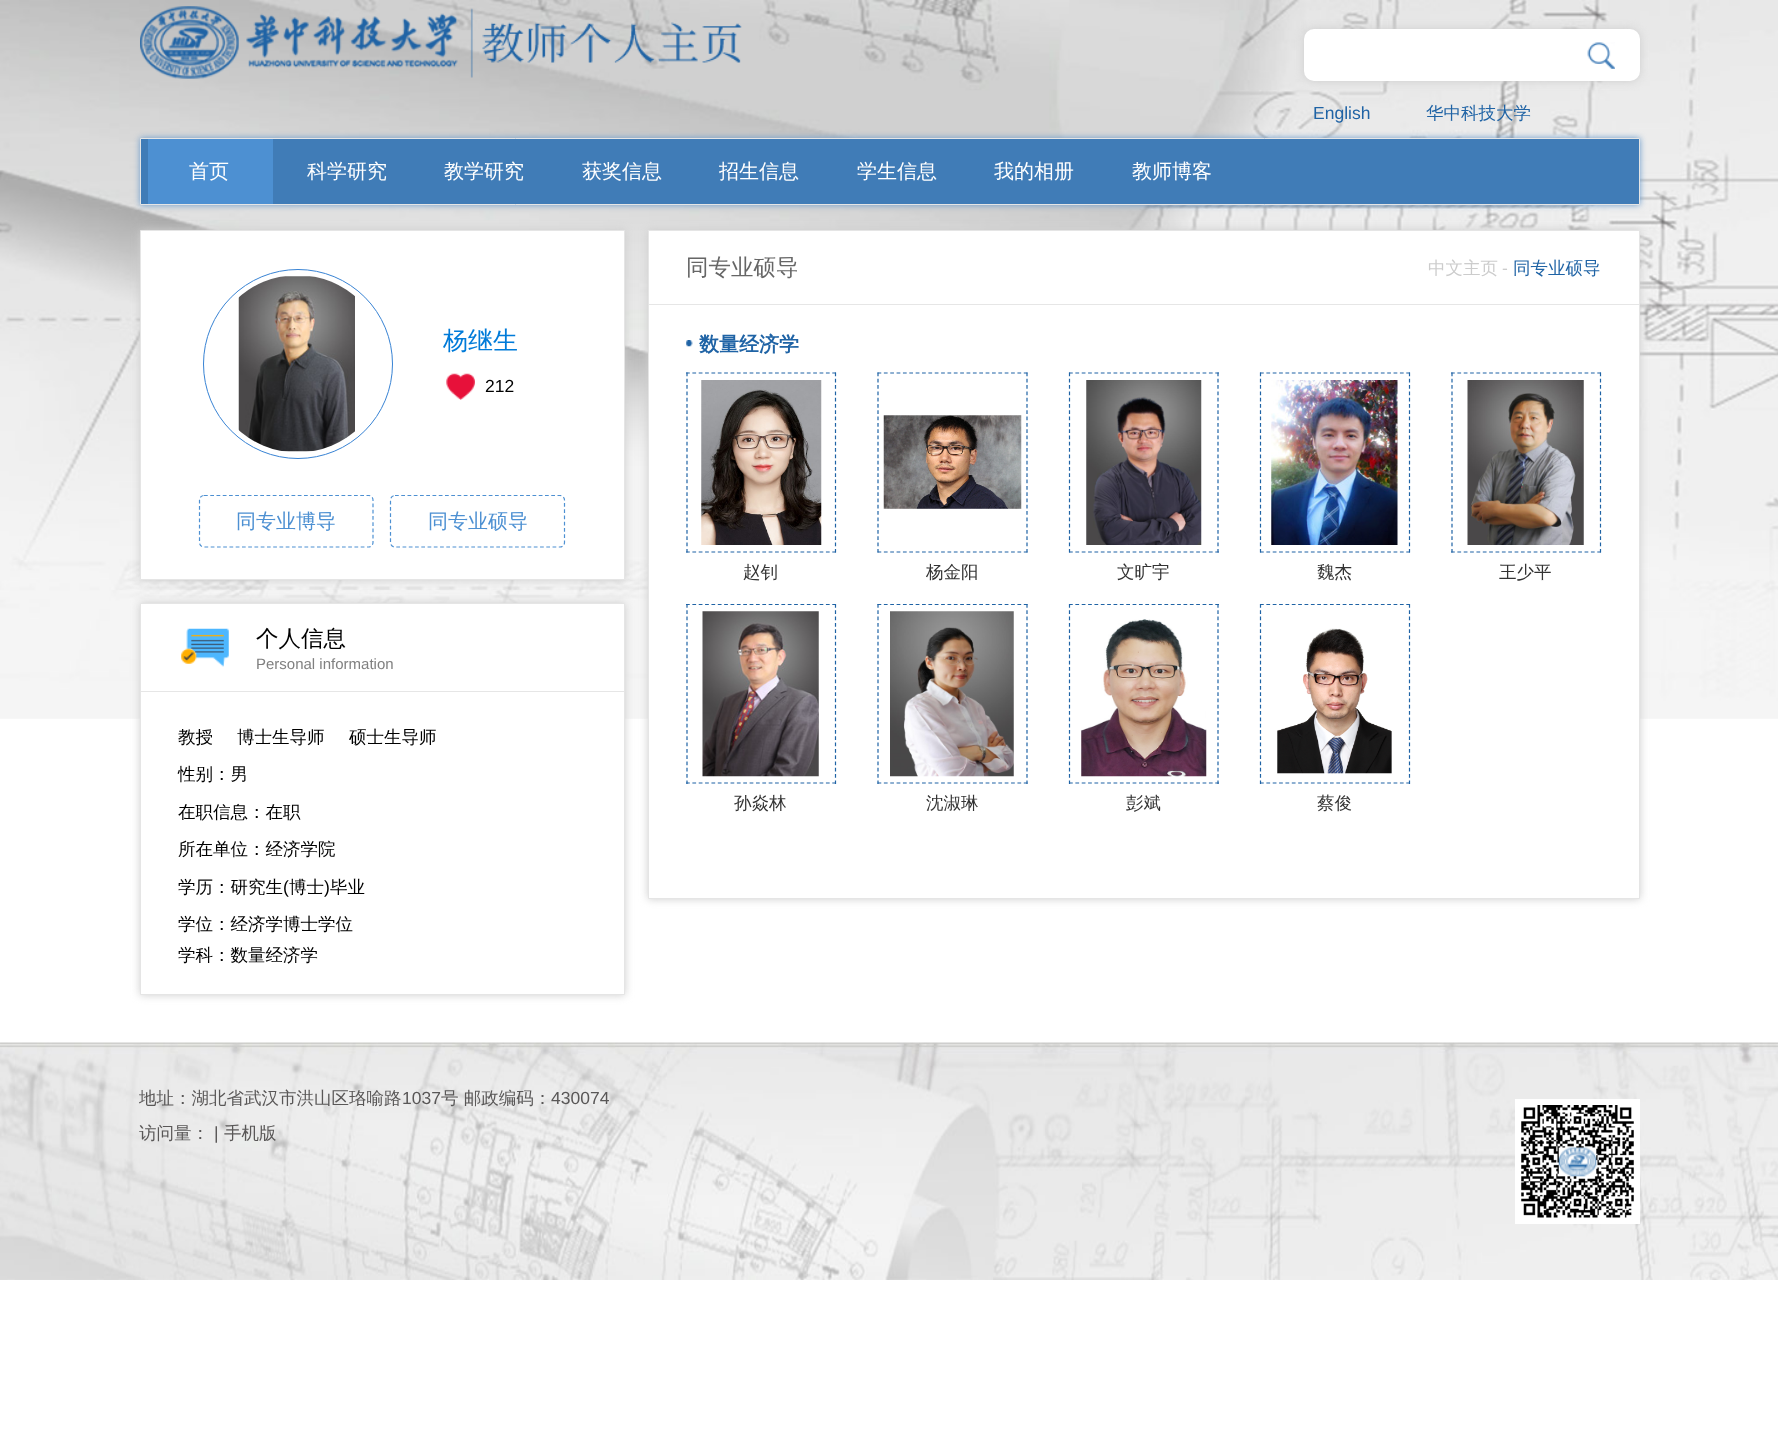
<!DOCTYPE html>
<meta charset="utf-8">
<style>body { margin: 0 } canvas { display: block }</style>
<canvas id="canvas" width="1778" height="1452"></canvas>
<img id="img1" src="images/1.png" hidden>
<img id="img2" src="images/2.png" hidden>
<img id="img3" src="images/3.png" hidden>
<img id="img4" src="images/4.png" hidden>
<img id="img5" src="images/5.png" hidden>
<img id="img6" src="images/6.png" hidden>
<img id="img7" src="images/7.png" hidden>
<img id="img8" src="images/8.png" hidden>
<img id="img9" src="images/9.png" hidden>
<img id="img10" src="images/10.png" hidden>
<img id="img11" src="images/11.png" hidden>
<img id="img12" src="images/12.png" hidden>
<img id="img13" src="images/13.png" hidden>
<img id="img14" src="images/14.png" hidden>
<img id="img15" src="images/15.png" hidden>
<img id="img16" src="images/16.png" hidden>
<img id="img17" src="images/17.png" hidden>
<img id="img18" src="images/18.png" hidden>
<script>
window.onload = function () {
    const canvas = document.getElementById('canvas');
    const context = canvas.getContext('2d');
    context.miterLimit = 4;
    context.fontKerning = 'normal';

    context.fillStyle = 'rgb(255, 255, 255)';
    context.fillRect(0, 0, 1778, 1452);
    context.drawImage(document.getElementById('img1'), 0, 0, 1778, 719);
    context.drawImage(document.getElementById('img2'), 140, 6, 602, 73);
    context.fillStyle = 'rgb(204, 204, 204)';
    context.filter = 'blur(4.5px)';
    context.beginPath();
    context.roundRect(1304, 29, 336, 52, 10);
    context.fill();
    context.filter = 'none';
    context.fillStyle = 'rgb(255, 255, 255)';
    context.beginPath();
    context.roundRect(1304, 29, 336, 52, 10);
    context.fill();
    context.drawImage(document.getElementById('img3'), 1587, 42, 28, 27);
    context.fillStyle = 'rgb(104, 153, 202)';
    context.filter = 'blur(3px)';
    context.beginPath();
    context.rect(140, 138, 1500, 67);
    context.fill();
    context.filter = 'none';
    context.fillStyle = 'rgb(64, 124, 183)';
    context.beginPath();
    context.rect(140.5, 138.5, 1499, 66);
    context.fill();
    context.strokeStyle = 'rgb(229, 229, 229)';
    context.stroke();
    context.fillStyle = 'rgb(77, 144, 210)';
    context.fillRect(148, 139, 125, 65);
    context.fillStyle = 'rgb(204, 204, 204)';
    context.filter = 'blur(4.5px)';
    context.beginPath();
    context.rect(140, 230, 485, 350);
    context.fill();
    context.filter = 'none';
    context.fillStyle = 'rgb(255, 255, 255)';
    context.beginPath();
    context.rect(140.5, 230.5, 484, 349);
    context.fill();
    context.stroke();
    context.beginPath();
    context.arc(298, 364, 94.5, 0, 2 * Math.PI);
    context.strokeStyle = 'rgb(56, 131, 212)';
    context.stroke();
    context.drawImage(document.getElementById('img4'), 238, 276, 117, 176);
    context.drawImage(document.getElementById('img5'), 446, 373, 29, 27);
    context.beginPath();
    context.moveTo(204, 495.5);
    context.lineTo(369, 495.5);
    context.bezierCurveTo(371, 495.5, 373, 497.5, 373, 500);
    context.lineTo(373, 542.5);
    context.bezierCurveTo(373, 545, 371, 547, 369, 547);
    context.lineTo(204, 547);
    context.bezierCurveTo(201.5, 547, 199.5, 545, 199.5, 542.5);
    context.lineTo(199.5, 500);
    context.bezierCurveTo(199.5, 497.5, 201.5, 495.5, 204, 495.5);
    context.closePath();
    context.strokeStyle = 'rgb(77, 144, 210)';
    context.lineWidth = 1.2;
    context.setLineDash([3.75, 2.5]);
    context.stroke();
    context.beginPath();
    context.moveTo(395, 495.5);
    context.lineTo(560, 495.5);
    context.bezierCurveTo(562.5, 495.5, 564.5, 497.5, 564.5, 500);
    context.lineTo(564.5, 542.5);
    context.bezierCurveTo(564.5, 545, 562.5, 547, 560, 547);
    context.lineTo(395, 547);
    context.bezierCurveTo(392.5, 547, 390.5, 545, 390.5, 542.5);
    context.lineTo(390.5, 500);
    context.bezierCurveTo(390.5, 497.5, 392.5, 495.5, 395, 495.5);
    context.closePath();
    context.stroke();
    context.fillStyle = 'rgb(204, 204, 204)';
    context.filter = 'blur(4.5px)';
    context.beginPath();
    context.rect(140, 603, 485, 392);
    context.fill();
    context.filter = 'none';
    context.fillStyle = 'rgb(255, 255, 255)';
    context.beginPath();
    context.rect(140.5, 603.5, 484, 391);
    context.fill();
    context.strokeStyle = 'rgb(229, 229, 229)';
    context.lineWidth = 1;
    context.setLineDash([]);
    context.stroke();
    context.fillStyle = 'rgb(230, 230, 230)';
    context.fillRect(141, 691, 483, 1);
    context.drawImage(document.getElementById('img6'), 181, 628, 48, 39);
    context.fillStyle = 'rgb(204, 204, 204)';
    context.filter = 'blur(4.5px)';
    context.beginPath();
    context.rect(648, 230, 992, 669);
    context.fill();
    context.filter = 'none';
    context.fillStyle = 'rgb(255, 255, 255)';
    context.beginPath();
    context.rect(648.5, 230.5, 991, 668);
    context.fill();
    context.stroke();
    context.fillStyle = 'rgb(230, 230, 230)';
    context.fillRect(649, 304, 990, 1);
    context.drawImage(document.getElementById('img7'), 686, 340, 7, 7);
    context.beginPath();
    context.moveTo(686, 373);
    context.lineTo(836, 373);
    context.strokeStyle = 'rgb(31, 99, 165)';
    context.lineWidth = 1.2;
    context.setLineDash([3.75, 2.61]);
    context.stroke();
    context.beginPath();
    context.moveTo(835.5, 372.5);
    context.lineTo(835.5, 552.5);
    context.setLineDash([3.75, 2.55]);
    context.stroke();
    context.beginPath();
    context.moveTo(686, 552);
    context.lineTo(836, 552);
    context.setLineDash([3.75, 2.61]);
    context.stroke();
    context.beginPath();
    context.moveTo(687, 372.5);
    context.lineTo(687, 552.5);
    context.setLineDash([3.75, 2.55]);
    context.stroke();
    context.drawImage(document.getElementById('img8'), 701, 380, 121, 165);
    context.beginPath();
    context.moveTo(877.5, 373);
    context.lineTo(1027.5, 373);
    context.setLineDash([3.75, 2.61]);
    context.stroke();
    context.beginPath();
    context.moveTo(1027, 372.5);
    context.lineTo(1027, 552.5);
    context.setLineDash([3.75, 2.55]);
    context.stroke();
    context.beginPath();
    context.moveTo(877.5, 552);
    context.lineTo(1027.5, 552);
    context.setLineDash([3.75, 2.61]);
    context.stroke();
    context.beginPath();
    context.moveTo(878, 372.5);
    context.lineTo(878, 552.5);
    context.setLineDash([3.75, 2.55]);
    context.stroke();
    context.drawImage(document.getElementById('img9'), 883, 415, 139, 94);
    context.beginPath();
    context.moveTo(1069, 373);
    context.lineTo(1219, 373);
    context.setLineDash([3.75, 2.61]);
    context.stroke();
    context.beginPath();
    context.moveTo(1218, 372.5);
    context.lineTo(1218, 552.5);
    context.setLineDash([3.75, 2.55]);
    context.stroke();
    context.beginPath();
    context.moveTo(1069, 552);
    context.lineTo(1219, 552);
    context.setLineDash([3.75, 2.61]);
    context.stroke();
    context.beginPath();
    context.moveTo(1069.5, 372.5);
    context.lineTo(1069.5, 552.5);
    context.setLineDash([3.75, 2.55]);
    context.stroke();
    context.drawImage(document.getElementById('img10'), 1086, 380, 116, 165);
    context.beginPath();
    context.moveTo(1260, 373);
    context.lineTo(1410, 373);
    context.setLineDash([3.75, 2.61]);
    context.stroke();
    context.beginPath();
    context.moveTo(1409.5, 372.5);
    context.lineTo(1409.5, 552.5);
    context.setLineDash([3.75, 2.55]);
    context.stroke();
    context.beginPath();
    context.moveTo(1260, 552);
    context.lineTo(1410, 552);
    context.setLineDash([3.75, 2.61]);
    context.stroke();
    context.beginPath();
    context.moveTo(1260.5, 372.5);
    context.lineTo(1260.5, 552.5);
    context.setLineDash([3.75, 2.55]);
    context.stroke();
    context.drawImage(document.getElementById('img11'), 1271, 380, 127, 165);
    context.beginPath();
    context.moveTo(1451, 373);
    context.lineTo(1601, 373);
    context.setLineDash([3.75, 2.61]);
    context.stroke();
    context.beginPath();
    context.moveTo(1600.5, 372.5);
    context.lineTo(1600.5, 552.5);
    context.setLineDash([3.75, 2.55]);
    context.stroke();
    context.beginPath();
    context.moveTo(1451, 552);
    context.lineTo(1601, 552);
    context.setLineDash([3.75, 2.61]);
    context.stroke();
    context.beginPath();
    context.moveTo(1452, 372.5);
    context.lineTo(1452, 552.5);
    context.setLineDash([3.75, 2.55]);
    context.stroke();
    context.drawImage(document.getElementById('img12'), 1467, 380, 117, 165);
    context.beginPath();
    context.moveTo(686, 604.5);
    context.lineTo(836, 604.5);
    context.setLineDash([3.75, 2.61]);
    context.stroke();
    context.beginPath();
    context.moveTo(835.5, 604);
    context.lineTo(835.5, 784);
    context.setLineDash([3.75, 2.55]);
    context.stroke();
    context.beginPath();
    context.moveTo(686, 783);
    context.lineTo(836, 783);
    context.setLineDash([3.75, 2.61]);
    context.stroke();
    context.beginPath();
    context.moveTo(687, 604);
    context.lineTo(687, 784);
    context.setLineDash([3.75, 2.55]);
    context.stroke();
    context.drawImage(document.getElementById('img13'), 702, 611, 117, 166);
    context.beginPath();
    context.moveTo(877.5, 604.5);
    context.lineTo(1027.5, 604.5);
    context.setLineDash([3.75, 2.61]);
    context.stroke();
    context.beginPath();
    context.moveTo(1027, 604);
    context.lineTo(1027, 784);
    context.setLineDash([3.75, 2.55]);
    context.stroke();
    context.beginPath();
    context.moveTo(877.5, 783);
    context.lineTo(1027.5, 783);
    context.setLineDash([3.75, 2.61]);
    context.stroke();
    context.beginPath();
    context.moveTo(878, 604);
    context.lineTo(878, 784);
    context.setLineDash([3.75, 2.55]);
    context.stroke();
    context.drawImage(document.getElementById('img14'), 890, 611, 124, 166);
    context.beginPath();
    context.moveTo(1069, 604.5);
    context.lineTo(1219, 604.5);
    context.setLineDash([3.75, 2.61]);
    context.stroke();
    context.beginPath();
    context.moveTo(1218, 604);
    context.lineTo(1218, 784);
    context.setLineDash([3.75, 2.55]);
    context.stroke();
    context.beginPath();
    context.moveTo(1069, 783);
    context.lineTo(1219, 783);
    context.setLineDash([3.75, 2.61]);
    context.stroke();
    context.beginPath();
    context.moveTo(1069.5, 604);
    context.lineTo(1069.5, 784);
    context.setLineDash([3.75, 2.55]);
    context.stroke();
    context.drawImage(document.getElementById('img15'), 1081, 619, 126, 158);
    context.beginPath();
    context.moveTo(1260, 604.5);
    context.lineTo(1410, 604.5);
    context.setLineDash([3.75, 2.61]);
    context.stroke();
    context.beginPath();
    context.moveTo(1409.5, 604);
    context.lineTo(1409.5, 784);
    context.setLineDash([3.75, 2.55]);
    context.stroke();
    context.beginPath();
    context.moveTo(1260, 783);
    context.lineTo(1410, 783);
    context.setLineDash([3.75, 2.61]);
    context.stroke();
    context.beginPath();
    context.moveTo(1260.5, 604);
    context.lineTo(1260.5, 784);
    context.setLineDash([3.75, 2.55]);
    context.stroke();
    context.drawImage(document.getElementById('img16'), 1277, 628, 115, 146);
    context.drawImage(document.getElementById('img17'), 0, 1042, 1778, 238);
    context.fillStyle = 'rgb(255, 255, 255)';
    context.fillRect(1515, 1099, 125, 125);
    context.drawImage(document.getElementById('img18'), 1521, 1105, 113, 113);
    context.font = '17.5px Liberation Sans';
    context.fillStyle = 'rgb(31, 99, 165)';
    context.fillText('English', 1313, 119);
    context.font = '500 17.5px WenQuanYi Zen Hei';
    context.fillText('华中科技大学', 1426, 119);
    context.font = '500 20px WenQuanYi Zen Hei';
    context.fillStyle = 'rgb(255, 255, 255)';
    context.fillText('首页', 189, 178);
    context.fillText('科学研究', 307, 178);
    context.fillText('教学研究', 444, 178);
    context.fillText('获奖信息', 582, 178);
    context.fillText('招生信息', 719, 178);
    context.fillText('学生信息', 857, 178);
    context.fillText('我的相册', 994, 178);
    context.fillText('教师博客', 1132, 178);
    context.font = '500 25px WenQuanYi Zen Hei';
    context.fillStyle = 'rgb(0, 123, 217)';
    context.fillText('杨继生', 443, 349);
    context.font = '17.5px Liberation Sans';
    context.fillStyle = 'rgb(0, 0, 0)';
    context.fillText('212', 485, 392);
    context.font = '500 20px WenQuanYi Zen Hei';
    context.fillStyle = 'rgb(77, 144, 210)';
    context.fillText('同专业博导', 236, 528);
    context.fillText('同专业硕导', 428, 528);
    context.font = '500 22.5px WenQuanYi Zen Hei';
    context.fillStyle = 'rgb(0, 0, 0)';
    context.fillText('个人信息', 256, 646);
    context.font = '15px Liberation Sans';
    context.fillStyle = 'rgb(128, 128, 128)';
    context.fillText('Personal information', 256, 669);
    context.font = '500 17.5px WenQuanYi Zen Hei';
    context.fillStyle = 'rgb(0, 0, 0)';
    context.fillText('教授', 178, 743);
    context.fillText('博士生导师', 237, 743);
    context.fillText('硕士生导师', 349, 743);
    context.fillText('性别：男', 178, 780);
    context.fillText('在职信息：在职', 178, 818);
    context.fillText('所在单位：经济学院', 178, 855);
    context.fillText('学历：研究生', 178, 893);
    context.font = '17.5px Liberation Sans';
    context.fillText('(', 283, 893);
    context.font = '500 17.5px WenQuanYi Zen Hei';
    context.fillText('博士', 289, 893);
    context.font = '17.5px Liberation Sans';
    context.fillText(')', 324, 893);
    context.font = '500 17.5px WenQuanYi Zen Hei';
    context.fillText('毕业', 330, 893);
    context.fillText('学位：经济学博士学位', 178, 930);
    context.fillText('学科：数量经济学', 178, 961);
    context.font = '500 22.5px WenQuanYi Zen Hei';
    context.fillStyle = 'rgb(102, 102, 102)';
    context.fillText('同专业硕导', 686, 275);
    context.font = '500 17.5px WenQuanYi Zen Hei';
    context.fillStyle = 'rgb(204, 204, 204)';
    context.fillText('中文主页', 1428, 274);
    context.font = '17.5px Liberation Sans';
    context.fillText('-', 1502, 274);
    context.font = '500 17.5px WenQuanYi Zen Hei';
    context.fillStyle = 'rgb(31, 99, 165)';
    context.fillText('同专业硕导', 1513, 274);
    context.font = 'bold 20px WenQuanYi Zen Hei';
    context.fillText('数量经济学', 699, 351);
    context.font = '500 17.5px WenQuanYi Zen Hei';
    context.fillStyle = 'rgb(51, 51, 51)';
    context.fillText('赵钊', 743, 578);
    context.fillText('杨金阳', 926, 578);
    context.fillText('文旷宇', 1117, 578);
    context.fillText('魏杰', 1317, 578);
    context.fillText('王少平', 1499, 578);
    context.fillText('孙焱林', 734, 809);
    context.fillText('沈淑琳', 926, 809);
    context.fillText('彭斌', 1126, 809);
    context.fillText('蔡俊', 1317, 809);
    context.fillStyle = 'rgb(89, 87, 87)';
    context.fillText('地址：湖北省武汉市洪山区珞喻路', 139, 1104);
    context.font = '17.5px Liberation Sans';
    context.fillText('1037', 402, 1104);
    context.font = '500 17.5px WenQuanYi Zen Hei';
    context.fillText('号 邮政编码：', 441, 1104);
    context.font = '17.5px Liberation Sans';
    context.fillText('430074', 551, 1104);
    context.font = '500 17.5px WenQuanYi Zen Hei';
    context.fillText('访问量：', 139, 1139);
    context.font = '17.5px Liberation Sans';
    context.fillText('|', 214, 1139);
    context.font = '500 17.5px WenQuanYi Zen Hei';
    context.fillText('手机版', 224, 1139);
};
</script>
